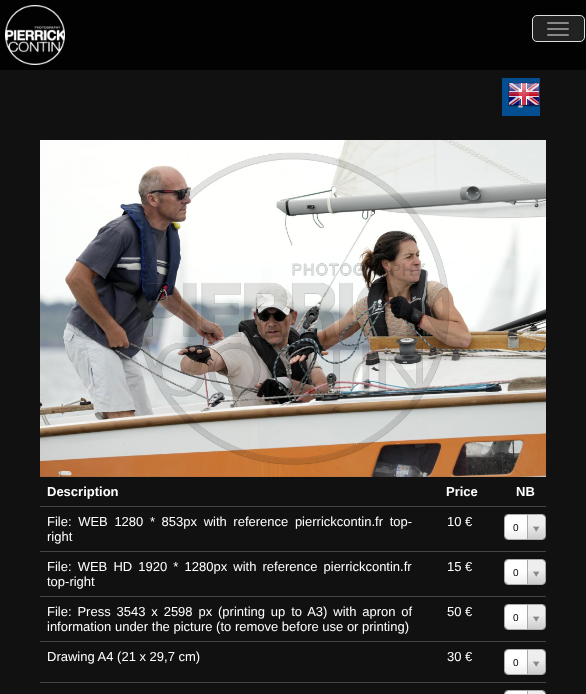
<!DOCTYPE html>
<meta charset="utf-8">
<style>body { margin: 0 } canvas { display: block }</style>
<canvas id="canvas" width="586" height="694"></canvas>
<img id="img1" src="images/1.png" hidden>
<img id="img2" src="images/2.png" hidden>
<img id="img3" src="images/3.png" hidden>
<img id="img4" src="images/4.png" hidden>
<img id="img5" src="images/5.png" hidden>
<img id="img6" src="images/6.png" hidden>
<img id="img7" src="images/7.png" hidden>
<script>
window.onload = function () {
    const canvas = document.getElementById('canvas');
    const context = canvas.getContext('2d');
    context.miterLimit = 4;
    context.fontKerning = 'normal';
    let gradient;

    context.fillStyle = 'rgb(17, 17, 17)';
    context.fillRect(0, 0, 586, 694);
    context.fillStyle = 'rgb(2, 2, 2)';
    context.fillRect(0, 0, 586, 70);
    context.drawImage(document.getElementById('img1'), 5, 5, 60, 60);
    context.drawImage(document.getElementById('img2'), 532, 15, 53, 27);
    context.beginPath();
    context.roundRect(532.5, 15.5, 52, 26, 4.5);
    context.strokeStyle = 'rgb(221, 221, 221)';
    context.stroke();
    context.fillStyle = 'rgb(136, 136, 136)';
    context.beginPath();
    context.roundRect(547, 22, 22, 2, 1);
    context.fill();
    context.beginPath();
    context.roundRect(547, 28, 22, 2, 1);
    context.fill();
    context.beginPath();
    context.roundRect(547, 34, 22, 2, 1);
    context.fill();
    context.drawImage(document.getElementById('img3'), 502, 78, 38, 38);
    context.drawImage(document.getElementById('img4'), 508, 82, 32, 25);
    context.drawImage(document.getElementById('img5'), 508, 82, 32, 25);
    context.drawImage(document.getElementById('img6'), 40, 140, 506, 337);
    context.fillStyle = 'rgb(68, 68, 68)';
    context.fillRect(40, 506, 506, 1);
    gradient = context.createLinearGradient(505, 539, 505, 515);
    gradient.addColorStop(0, 'rgb(238, 238, 238)');
    gradient.addColorStop(0.5, 'rgb(255, 255, 255)');
    context.fillStyle = gradient;
    context.beginPath();
    context.roundRect(505, 515, 40, 24, 3);
    context.fill();
    context.beginPath();
    context.roundRect(504.5, 514.5, 41, 25, 3.5);
    context.strokeStyle = 'rgb(170, 170, 170)';
    context.stroke();
    context.save();
    context.beginPath();
    context.roundRect(505, 515, 40, 24, 3);
    context.clip();
    gradient = context.createLinearGradient(528, 539, 528, 515);
    gradient.addColorStop(0, 'rgb(204, 204, 204)');
    gradient.addColorStop(0.6, 'rgb(238, 238, 238)');
    context.fillStyle = gradient;
    context.beginPath();
    context.roundRect(527, 515, 18, 24, [0, 4, 4, 0]);
    context.fill();
    context.restore();
    context.fillStyle = 'rgb(170, 170, 170)';
    context.fillRect(527, 515, 1, 24);
    context.drawImage(document.getElementById('img7'), 533, 526, 7, 6);
    context.fillStyle = 'rgb(68, 68, 68)';
    context.fillRect(40, 551, 506, 1);
    gradient = context.createLinearGradient(505, 584, 505, 560);
    gradient.addColorStop(0, 'rgb(238, 238, 238)');
    gradient.addColorStop(0.5, 'rgb(255, 255, 255)');
    context.fillStyle = gradient;
    context.beginPath();
    context.roundRect(505, 560, 40, 24, 3);
    context.fill();
    context.beginPath();
    context.roundRect(504.5, 559.5, 41, 25, 3.5);
    context.stroke();
    context.save();
    context.beginPath();
    context.roundRect(505, 560, 40, 24, 3);
    context.clip();
    gradient = context.createLinearGradient(528, 584, 528, 560);
    gradient.addColorStop(0, 'rgb(204, 204, 204)');
    gradient.addColorStop(0.6, 'rgb(238, 238, 238)');
    context.fillStyle = gradient;
    context.beginPath();
    context.roundRect(527, 560, 18, 24, [0, 4, 4, 0]);
    context.fill();
    context.restore();
    context.fillStyle = 'rgb(170, 170, 170)';
    context.fillRect(527, 560, 1, 24);
    context.drawImage(document.getElementById('img7'), 533, 571, 7, 6);
    context.fillStyle = 'rgb(68, 68, 68)';
    context.fillRect(40, 596, 506, 1);
    gradient = context.createLinearGradient(505, 629, 505, 605);
    gradient.addColorStop(0, 'rgb(238, 238, 238)');
    gradient.addColorStop(0.5, 'rgb(255, 255, 255)');
    context.fillStyle = gradient;
    context.beginPath();
    context.roundRect(505, 605, 40, 24, 3);
    context.fill();
    context.beginPath();
    context.roundRect(504.5, 604.5, 41, 25, 3.5);
    context.stroke();
    context.save();
    context.beginPath();
    context.roundRect(505, 605, 40, 24, 3);
    context.clip();
    gradient = context.createLinearGradient(528, 629, 528, 605);
    gradient.addColorStop(0, 'rgb(204, 204, 204)');
    gradient.addColorStop(0.6, 'rgb(238, 238, 238)');
    context.fillStyle = gradient;
    context.beginPath();
    context.roundRect(527, 605, 18, 24, [0, 4, 4, 0]);
    context.fill();
    context.restore();
    context.fillStyle = 'rgb(170, 170, 170)';
    context.fillRect(527, 605, 1, 24);
    context.drawImage(document.getElementById('img7'), 533, 616, 7, 6);
    context.fillStyle = 'rgb(68, 68, 68)';
    context.fillRect(40, 641, 506, 1);
    gradient = context.createLinearGradient(505, 674, 505, 650);
    gradient.addColorStop(0, 'rgb(238, 238, 238)');
    gradient.addColorStop(0.5, 'rgb(255, 255, 255)');
    context.fillStyle = gradient;
    context.beginPath();
    context.roundRect(505, 650, 40, 24, 3);
    context.fill();
    context.beginPath();
    context.roundRect(504.5, 649.5, 41, 25, 3.5);
    context.stroke();
    context.save();
    context.beginPath();
    context.roundRect(505, 650, 40, 24, 3);
    context.clip();
    gradient = context.createLinearGradient(528, 674, 528, 650);
    gradient.addColorStop(0, 'rgb(204, 204, 204)');
    gradient.addColorStop(0.6, 'rgb(238, 238, 238)');
    context.fillStyle = gradient;
    context.beginPath();
    context.roundRect(527, 650, 18, 24, [0, 4, 4, 0]);
    context.fill();
    context.restore();
    context.fillStyle = 'rgb(170, 170, 170)';
    context.fillRect(527, 650, 1, 24);
    context.drawImage(document.getElementById('img7'), 533, 661, 7, 6);
    context.fillStyle = 'rgb(68, 68, 68)';
    context.fillRect(40, 682, 506, 1);
    gradient = context.createLinearGradient(505, 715, 505, 691);
    gradient.addColorStop(0, 'rgb(238, 238, 238)');
    gradient.addColorStop(0.5, 'rgb(255, 255, 255)');
    context.fillStyle = gradient;
    context.beginPath();
    context.roundRect(505, 691, 40, 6, 3);
    context.fill();
    context.beginPath();
    context.roundRect(504.5, 690.5, 41, 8, 3.5);
    context.stroke();
    context.save();
    context.beginPath();
    context.roundRect(505, 691, 40, 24, 3);
    context.clip();
    gradient = context.createLinearGradient(528, 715, 528, 691);
    gradient.addColorStop(0, 'rgb(204, 204, 204)');
    gradient.addColorStop(0.6, 'rgb(238, 238, 238)');
    context.fillStyle = gradient;
    context.beginPath();
    context.moveTo(527, 691);
    context.lineTo(541, 691);
    context.bezierCurveTo(543, 691, 545, 693, 545, 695);
    context.lineTo(545, 694);
    context.bezierCurveTo(545, 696, 543, 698, 541, 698);
    context.lineTo(527, 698);
    context.closePath();
    context.fill();
    context.restore();
    context.fillStyle = 'rgb(170, 170, 170)';
    context.fillRect(527, 691, 1, 3);
    context.font = 'bold 13px Liberation Sans';
    context.fillStyle = 'rgb(254, 254, 254)';
    context.fillText('Description', 47, 496);
    context.fillText('Price', 446, 496);
    context.fillText('NB', 516, 496);
    context.wordSpacing = '3px';
    context.font = '13px Liberation Sans';
    context.fillText('File: WEB 1280 * 853px with reference pierrickcontin.fr top-', 47, 526);
    context.wordSpacing = '0px';
    context.fillText('right', 47, 541);
    context.fillText('10 €', 447, 526);
    context.font = '10px Liberation Sans';
    context.fillStyle = 'rgb(0, 0, 0)';
    context.fillText('0', 513, 531);
    context.wordSpacing = '2.5px';
    context.font = '13px Liberation Sans';
    context.fillStyle = 'rgb(254, 254, 254)';
    context.fillText('File: WEB HD 1920 * 1280px with reference pierrickcontin.fr', 47, 571);
    context.wordSpacing = '0px';
    context.fillText('top-right', 47, 586);
    context.fillText('15 €', 447, 571);
    context.font = '10px Liberation Sans';
    context.fillStyle = 'rgb(0, 0, 0)';
    context.fillText('0', 513, 576);
    context.wordSpacing = '2.25px';
    context.font = '13px Liberation Sans';
    context.fillStyle = 'rgb(254, 254, 254)';
    context.fillText('File: Press 3543 x 2598 px (printing up to A3) with apron of', 47, 616);
    context.wordSpacing = '0px';
    context.fillText('information under the picture (to remove before use or printing)', 47, 631);
    context.fillText('50 €', 447, 616);
    context.font = '10px Liberation Sans';
    context.fillStyle = 'rgb(0, 0, 0)';
    context.fillText('0', 513, 621);
    context.font = '13px Liberation Sans';
    context.fillStyle = 'rgb(254, 254, 254)';
    context.fillText('Drawing A4 (21 x 29,7 cm)', 47, 661);
    context.fillText('30 €', 447, 661);
    context.font = '10px Liberation Sans';
    context.fillStyle = 'rgb(0, 0, 0)';
    context.fillText('0', 513, 666);
};
</script>
